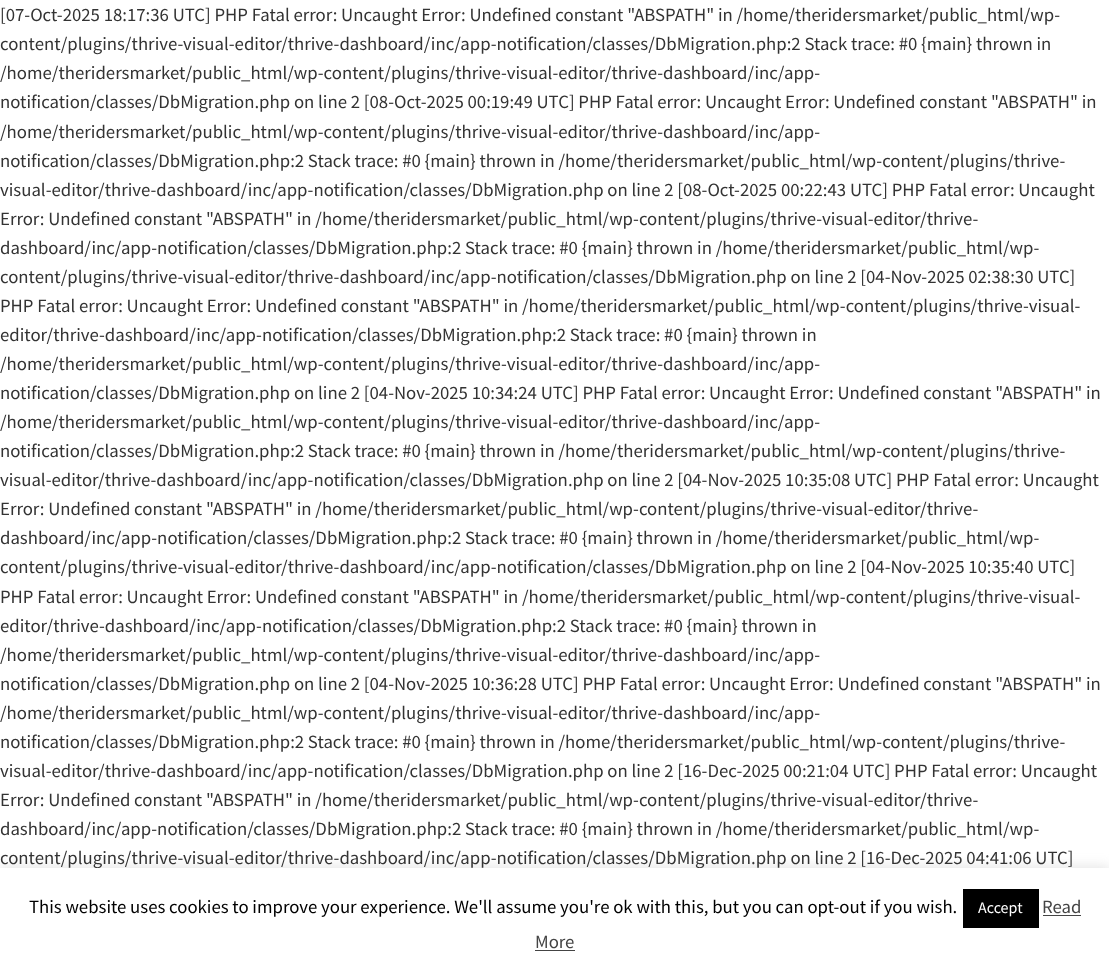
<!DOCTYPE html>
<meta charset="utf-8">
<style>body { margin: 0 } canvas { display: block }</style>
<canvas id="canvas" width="1109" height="971"></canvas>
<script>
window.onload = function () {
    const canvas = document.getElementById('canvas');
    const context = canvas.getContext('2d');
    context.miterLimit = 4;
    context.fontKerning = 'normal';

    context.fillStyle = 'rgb(255, 255, 255)';
    context.fillRect(0, 0, 1109, 971);
    context.fillStyle = 'rgba(172, 171, 171, 0.3)';
    context.filter = 'blur(6px)';
    context.beginPath();
    context.rect(0, 866, 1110, 104);
    context.fill();
    context.filter = 'none';
    context.font = '18.75px Source Sans Pro';
    context.fillStyle = 'rgb(51, 51, 51)';
    context.fillText('[07-Oct-2025 18:17:36 UTC] PHP Fatal error: Uncaught Error: Undefined constant "ABSPATH" in /home/theridersmarket/public_html/wp-', 0, 21);
    context.fillText('content/plugins/thrive-visual-editor/thrive-dashboard/inc/app-notification/classes/DbMigration.php:2 Stack trace: #0 {main} thrown in', 0, 50);
    context.fillText('/home/theridersmarket/public_html/wp-content/plugins/thrive-visual-editor/thrive-dashboard/inc/app-', 0, 79);
    context.fillText('notification/classes/DbMigration.php on line 2 [08-Oct-2025 00:19:49 UTC] PHP Fatal error: Uncaught Error: Undefined constant "ABSPATH" in', 0, 108);
    context.fillText('/home/theridersmarket/public_html/wp-content/plugins/thrive-visual-editor/thrive-dashboard/inc/app-', 0, 138);
    context.fillText('notification/classes/DbMigration.php:2 Stack trace: #0 {main} thrown in /home/theridersmarket/public_html/wp-content/plugins/thrive-', 0, 167);
    context.fillText('visual-editor/thrive-dashboard/inc/app-notification/classes/DbMigration.php on line 2 [08-Oct-2025 00:22:43 UTC] PHP Fatal error: Uncaught', 0, 196);
    context.fillText('Error: Undefined constant "ABSPATH" in /home/theridersmarket/public_html/wp-content/plugins/thrive-visual-editor/thrive-', 0, 225);
    context.fillText('dashboard/inc/app-notification/classes/DbMigration.php:2 Stack trace: #0 {main} thrown in /home/theridersmarket/public_html/wp-', 0, 254);
    context.fillText('content/plugins/thrive-visual-editor/thrive-dashboard/inc/app-notification/classes/DbMigration.php on line 2 [04-Nov-2025 02:38:30 UTC]', 0, 283);
    context.fillText('PHP Fatal error: Uncaught Error: Undefined constant "ABSPATH" in /home/theridersmarket/public_html/wp-content/plugins/thrive-visual-', 0, 312);
    context.fillText('editor/thrive-dashboard/inc/app-notification/classes/DbMigration.php:2 Stack trace: #0 {main} thrown in', 0, 341);
    context.fillText('/home/theridersmarket/public_html/wp-content/plugins/thrive-visual-editor/thrive-dashboard/inc/app-', 0, 370);
    context.fillText('notification/classes/DbMigration.php on line 2 [04-Nov-2025 10:34:24 UTC] PHP Fatal error: Uncaught Error: Undefined constant "ABSPATH" in', 0, 399);
    context.fillText('/home/theridersmarket/public_html/wp-content/plugins/thrive-visual-editor/thrive-dashboard/inc/app-', 0, 428);
    context.fillText('notification/classes/DbMigration.php:2 Stack trace: #0 {main} thrown in /home/theridersmarket/public_html/wp-content/plugins/thrive-', 0, 457);
    context.fillText('visual-editor/thrive-dashboard/inc/app-notification/classes/DbMigration.php on line 2 [04-Nov-2025 10:35:08 UTC] PHP Fatal error: Uncaught', 0, 486);
    context.fillText('Error: Undefined constant "ABSPATH" in /home/theridersmarket/public_html/wp-content/plugins/thrive-visual-editor/thrive-', 0, 515);
    context.fillText('dashboard/inc/app-notification/classes/DbMigration.php:2 Stack trace: #0 {main} thrown in /home/theridersmarket/public_html/wp-', 0, 544);
    context.fillText('content/plugins/thrive-visual-editor/thrive-dashboard/inc/app-notification/classes/DbMigration.php on line 2 [04-Nov-2025 10:35:40 UTC]', 0, 573);
    context.fillText('PHP Fatal error: Uncaught Error: Undefined constant "ABSPATH" in /home/theridersmarket/public_html/wp-content/plugins/thrive-visual-', 0, 603);
    context.fillText('editor/thrive-dashboard/inc/app-notification/classes/DbMigration.php:2 Stack trace: #0 {main} thrown in', 0, 632);
    context.fillText('/home/theridersmarket/public_html/wp-content/plugins/thrive-visual-editor/thrive-dashboard/inc/app-', 0, 661);
    context.fillText('notification/classes/DbMigration.php on line 2 [04-Nov-2025 10:36:28 UTC] PHP Fatal error: Uncaught Error: Undefined constant "ABSPATH" in', 0, 690);
    context.fillText('/home/theridersmarket/public_html/wp-content/plugins/thrive-visual-editor/thrive-dashboard/inc/app-', 0, 719);
    context.fillText('notification/classes/DbMigration.php:2 Stack trace: #0 {main} thrown in /home/theridersmarket/public_html/wp-content/plugins/thrive-', 0, 748);
    context.fillText('visual-editor/thrive-dashboard/inc/app-notification/classes/DbMigration.php on line 2 [16-Dec-2025 00:21:04 UTC] PHP Fatal error: Uncaught', 0, 777);
    context.fillText('Error: Undefined constant "ABSPATH" in /home/theridersmarket/public_html/wp-content/plugins/thrive-visual-editor/thrive-', 0, 806);
    context.fillText('dashboard/inc/app-notification/classes/DbMigration.php:2 Stack trace: #0 {main} thrown in /home/theridersmarket/public_html/wp-', 0, 835);
    context.fillText('content/plugins/thrive-visual-editor/thrive-dashboard/inc/app-notification/classes/DbMigration.php on line 2 [16-Dec-2025 04:41:06 UTC]', 0, 864);
    context.fillStyle = 'rgb(255, 255, 255)';
    context.fillRect(0, 868, 1109, 103);
    context.fillStyle = 'rgb(0, 0, 0)';
    context.fillText('This website uses cookies to improve your experience. We\'ll assume you\'re ok with this, but you can opt-out if you wish.', 29, 913);
    context.fillRect(963, 889, 76, 39);
    context.font = '16px Source Sans Pro';
    context.fillStyle = 'rgb(255, 255, 255)';
    context.fillText('Accept', 978, 913);
    context.font = '18.75px Source Sans Pro';
    context.fillStyle = 'rgb(68, 68, 68)';
    context.fillText('Read', 1042, 913);
    context.fillRect(1043, 915, 38, 1);
    context.fillText('More', 535, 948);
    context.fillRect(535, 950, 40, 1);
};
</script>
